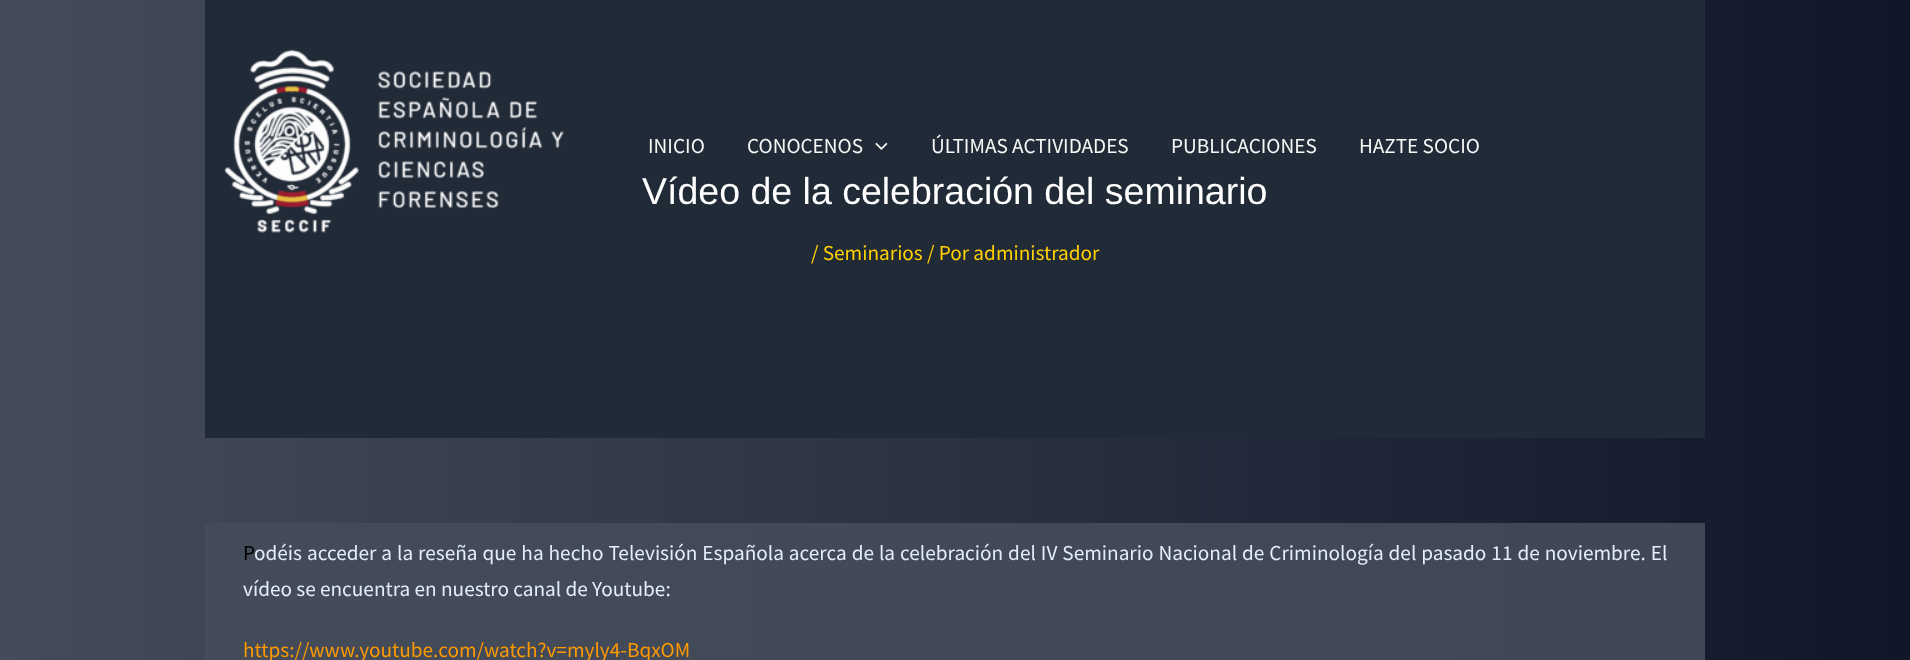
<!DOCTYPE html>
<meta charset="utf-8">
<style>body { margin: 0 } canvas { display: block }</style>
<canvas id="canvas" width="1910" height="660"></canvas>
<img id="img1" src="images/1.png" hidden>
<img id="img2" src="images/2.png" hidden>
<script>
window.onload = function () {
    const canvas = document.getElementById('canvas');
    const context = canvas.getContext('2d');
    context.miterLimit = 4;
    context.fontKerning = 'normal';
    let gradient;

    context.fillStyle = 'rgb(255, 255, 255)';
    context.fillRect(0, 0, 1910, 660);
    gradient = context.createLinearGradient(0, 646, 1910, 646);
    gradient.addColorStop(0, 'rgb(68, 76, 90)');
    gradient.addColorStop(0.99, 'rgb(17, 23, 41)');
    context.fillStyle = gradient;
    context.fillRect(0, 0, 1910, 660);
    gradient = context.createLinearGradient(0, 646, 1910, 646);
    gradient.addColorStop(0, 'rgb(68, 76, 89)');
    gradient.addColorStop(0.99, 'rgb(63, 71, 84)');
    context.fillStyle = gradient;
    context.fillRect(205, 523, 1500, 137);
    context.fillStyle = 'rgb(33, 42, 55)';
    context.fillRect(205, 0, 1500, 438);
    context.drawImage(document.getElementById('img1'), 224, 49, 340, 184);
    context.drawImage(document.getElementById('img2'), 875, 142, 13, 8);
    context.font = '21.25px Source Sans Pro';
    context.fillStyle = 'rgb(246, 248, 245)';
    context.fillText('INICIO', 648, 153);
    context.fillText('CONOCENOS', 747, 153);
    context.fillText('ÚLTIMAS ACTIVIDADES', 931, 153);
    context.fillText('PUBLICACIONES', 1171, 153);
    context.fillText('HAZTE SOCIO', 1359, 153);
    context.font = '37.5px Liberation Sans';
    context.fillStyle = 'rgb(255, 255, 255)';
    context.fillText('Vídeo de la celebración del seminario', 642, 204);
    context.font = '21.25px Source Sans Pro';
    context.fillStyle = 'rgb(255, 209, 0)';
    context.fillText('/ Seminarios / Por administrador', 811, 260);
    context.fillStyle = 'rgb(0, 0, 0)';
    context.fillText('P', 243, 560);
    context.wordSpacing = '0.7px';
    context.fillStyle = 'rgb(228, 237, 250)';
    context.fillText('odéis acceder a la reseña que ha hecho Televisión Española acerca de la celebración del IV Seminario Nacional de Criminología del pasado 11 de noviembre. El', 254, 560);
    context.wordSpacing = '0px';
    context.fillText('vídeo se encuentra en nuestro canal de Youtube:', 243, 596);
    context.fillStyle = 'rgb(255, 153, 0)';
    context.fillText('https://www.youtube.com/watch?v=myly4-BqxOM', 243, 657);
};
</script>
